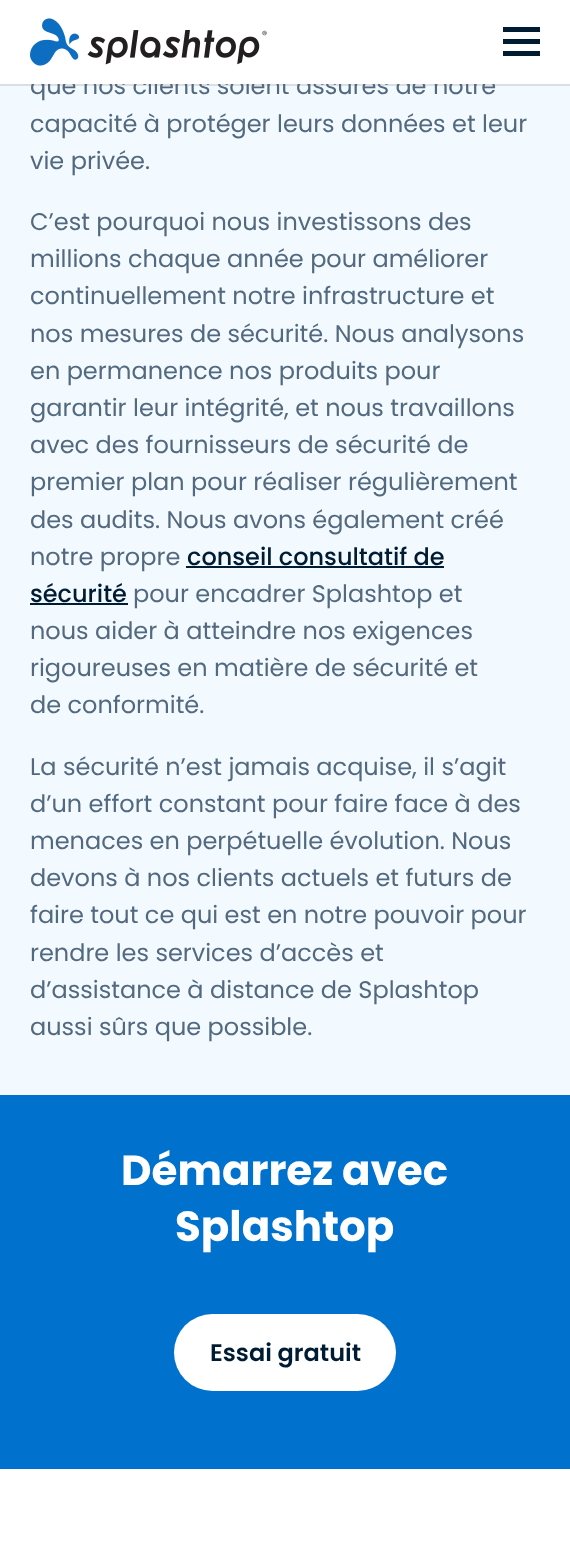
<!DOCTYPE html>
<meta charset="utf-8">
<style>body { margin: 0 } canvas { display: block }</style>
<canvas id="canvas" width="570" height="1545"></canvas>
<img id="img1" src="images/1.png" hidden>
<script>
window.onload = function () {
    const canvas = document.getElementById('canvas');
    const context = canvas.getContext('2d');
    context.miterLimit = 4;
    context.fontKerning = 'normal';

    context.fillStyle = 'rgb(255, 255, 255)';
    context.fillRect(0, 0, 570, 1545);
    context.fillStyle = 'rgb(242, 249, 255)';
    context.fillRect(0, 84, 570, 1011);
    context.fillStyle = 'rgba(0, 0, 0, 0.1)';
    context.fillRect(0, 84, 570, 2);
    context.drawImage(document.getElementById('img1'), 30, 18, 237, 48);
    context.fillStyle = 'rgb(0, 28, 51)';
    context.fillRect(503, 27, 37, 5);
    context.fillRect(503, 39, 37, 5);
    context.fillRect(503, 51, 37, 5);
    context.fillRect(186, 566, 258, 2);
    context.fillRect(30, 603, 98, 2);
    context.fillStyle = 'rgb(0, 114, 206)';
    context.fillRect(0, 1095, 570, 374);
    context.fillStyle = 'rgb(255, 255, 255)';
    context.beginPath();
    context.roundRect(174, 1314, 222, 77, 38.5);
    context.fill();
    context.font = '24px Poppins';
    context.fillStyle = 'rgb(82, 105, 127)';
    context.fillText('que nos clients soient assurés de notre', 30, 94);
    context.fillStyle = 'rgb(255, 255, 255)';
    context.fillRect(31, 75, 464, 9);
    context.fillStyle = 'rgb(82, 105, 127)';
    context.fillText('capacité à protéger leurs données et leur', 30, 132);
    context.fillText('vie privée.', 30, 169);
    context.fillText('C’est pourquoi nous investissons des', 30, 230);
    context.fillText('millions chaque année pour améliorer', 30, 267);
    context.fillText('continuellement notre infrastructure et', 30, 304);
    context.fillText('nos mesures de sécurité. Nous analysons', 30, 342);
    context.fillText('en permanence nos produits pour', 30, 379);
    context.fillText('garantir leur intégrité, et nous travaillons', 30, 416);
    context.fillText('avec des fournisseurs de sécurité de', 30, 453);
    context.fillText('premier plan pour réaliser régulièrement', 30, 490);
    context.fillText('des audits. Nous avons également créé', 30, 528);
    context.fillText('notre propre', 30, 565);
    context.font = '500 24px Poppins';
    context.fillStyle = 'rgb(0, 28, 51)';
    context.fillText('conseil consultatif de', 187, 565);
    context.fillText('sécurité', 30, 602);
    context.font = '24px Poppins';
    context.fillStyle = 'rgb(82, 105, 127)';
    context.fillText('pour encadrer Splashtop et', 133, 602);
    context.fillText('nous aider à atteindre nos exigences', 30, 639);
    context.fillText('rigoureuses en matière de sécurité et', 30, 676);
    context.fillText('de conformité.', 30, 713);
    context.fillText('La sécurité n’est jamais acquise, il s’agit', 30, 775);
    context.fillText('d’un effort constant pour faire face à des', 30, 812);
    context.fillText('menaces en perpétuelle évolution. Nous', 30, 849);
    context.fillText('devons à nos clients actuels et futurs de', 30, 886);
    context.fillText('faire tout ce qui est en notre pouvoir pour', 30, 923);
    context.fillText('rendre les services d’accès et', 30, 961);
    context.fillText('d’assistance à distance de Splashtop', 30, 998);
    context.fillText('aussi sûrs que possible.', 30, 1035);
    context.font = 'bold 42px Poppins';
    context.fillStyle = 'rgb(255, 255, 255)';
    context.fillText('Démarrez avec', 121, 1185);
    context.fillText('Splashtop', 175, 1241);
    context.font = '600 24px Poppins';
    context.fillStyle = 'rgb(0, 28, 51)';
    context.fillText('Essai gratuit', 210, 1361);
};
</script>
